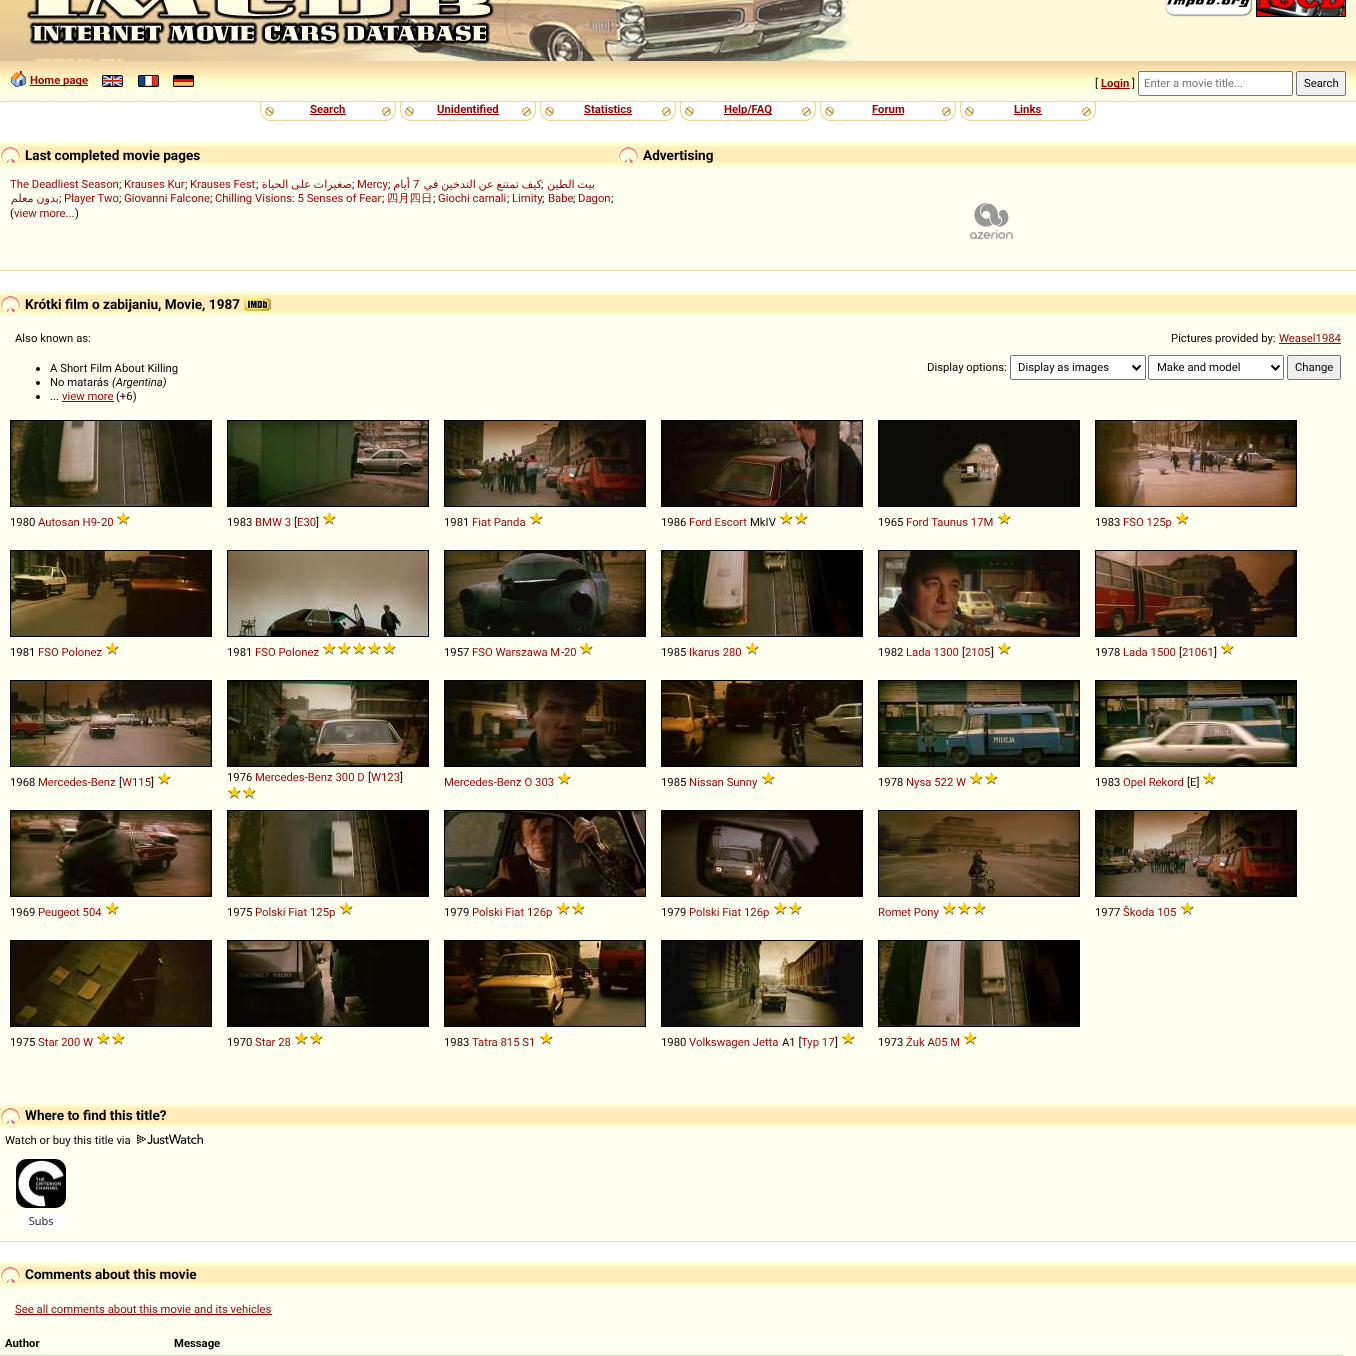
<!DOCTYPE html>
<meta charset="utf-8">
<style>body { margin: 0 } canvas { display: block }</style>
<canvas id="canvas" width="1356" height="1356"></canvas>
<img id="img1" src="images/1.png" hidden>
<img id="img2" src="images/2.png" hidden>
<img id="img3" src="images/3.png" hidden>
<img id="img4" src="images/4.png" hidden>
<img id="img5" src="images/5.png" hidden>
<img id="img6" src="images/6.png" hidden>
<img id="img7" src="images/7.png" hidden>
<img id="img8" src="images/8.png" hidden>
<img id="img9" src="images/9.png" hidden>
<img id="img10" src="images/10.png" hidden>
<img id="img11" src="images/11.png" hidden>
<img id="img12" src="images/12.png" hidden>
<img id="img13" src="images/13.png" hidden>
<img id="img14" src="images/14.png" hidden>
<img id="img15" src="images/15.png" hidden>
<img id="img16" src="images/16.png" hidden>
<img id="img17" src="images/17.png" hidden>
<img id="img18" src="images/18.png" hidden>
<img id="img19" src="images/19.png" hidden>
<img id="img20" src="images/20.png" hidden>
<img id="img21" src="images/21.png" hidden>
<img id="img22" src="images/22.png" hidden>
<img id="img23" src="images/23.png" hidden>
<img id="img24" src="images/24.png" hidden>
<img id="img25" src="images/25.png" hidden>
<img id="img26" src="images/26.png" hidden>
<img id="img27" src="images/27.png" hidden>
<img id="img28" src="images/28.png" hidden>
<img id="img29" src="images/29.png" hidden>
<img id="img30" src="images/30.png" hidden>
<img id="img31" src="images/31.png" hidden>
<img id="img32" src="images/32.png" hidden>
<img id="img33" src="images/33.png" hidden>
<img id="img34" src="images/34.png" hidden>
<img id="img35" src="images/35.png" hidden>
<img id="img36" src="images/36.png" hidden>
<img id="img37" src="images/37.png" hidden>
<img id="img38" src="images/38.png" hidden>
<img id="img39" src="images/39.png" hidden>
<img id="img40" src="images/40.png" hidden>
<img id="img41" src="images/41.png" hidden>
<img id="img42" src="images/42.png" hidden>
<img id="img43" src="images/43.png" hidden>
<img id="img44" src="images/44.png" hidden>
<img id="img45" src="images/45.png" hidden>
<img id="img46" src="images/46.png" hidden>
<img id="img47" src="images/47.png" hidden>
<script>
window.onload = function () {
    const canvas = document.getElementById('canvas');
    const context = canvas.getContext('2d');
    context.miterLimit = 4;
    context.fontKerning = 'normal';

    context.fillStyle = 'rgb(255, 255, 255)';
    context.fillRect(0, 0, 1356, 1356);
    context.fillStyle = 'rgb(254, 249, 217)';
    context.fillRect(863, 0, 493, 61);
    context.drawImage(document.getElementById('img1'), 0, 0, 863, 61);
    context.drawImage(document.getElementById('img2'), 1165, 0, 88, 17);
    context.drawImage(document.getElementById('img3'), 1257, 0, 88, 16);
    context.strokeStyle = 'rgb(0, 0, 0)';
    context.strokeRect(1256.5, -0.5, 89, 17);
    context.fillStyle = 'rgb(255, 255, 231)';
    context.fillRect(0, 91, 1356, 10);
    context.drawImage(document.getElementById('img4'), 0, 61, 1356, 30);
    context.fillStyle = 'rgb(239, 214, 163)';
    context.fillRect(0, 101, 1356, 1);
    context.drawImage(document.getElementById('img5'), 11, 71, 15, 16);
    context.fillStyle = 'rgb(153, 0, 0)';
    context.fillRect(30, 85, 58, 1);
    context.drawImage(document.getElementById('img6'), 102, 75, 21, 12);
    context.drawImage(document.getElementById('img7'), 138, 75, 21, 12);
    context.drawImage(document.getElementById('img8'), 173, 75, 21, 12);
    context.fillRect(1101, 88, 29, 1);
    context.fillStyle = 'rgb(255, 255, 255)';
    context.beginPath();
    context.roundRect(1138.5, 71.5, 154, 24, 1.5);
    context.fill();
    context.strokeStyle = 'rgb(118, 118, 118)';
    context.stroke();
    context.fillStyle = 'rgb(239, 239, 239)';
    context.beginPath();
    context.roundRect(1296.5, 71.5, 49, 24, 1.5);
    context.fill();
    context.stroke();
    context.drawImage(document.getElementById('img9'), 260, 102, 136, 19);
    context.fillStyle = 'rgb(153, 0, 0)';
    context.fillRect(310, 114, 36, 1);
    context.drawImage(document.getElementById('img9'), 400, 102, 136, 19);
    context.fillRect(437, 114, 62, 1);
    context.drawImage(document.getElementById('img9'), 540, 102, 136, 19);
    context.fillRect(584, 114, 48, 1);
    context.drawImage(document.getElementById('img9'), 680, 102, 136, 19);
    context.fillRect(724, 114, 48, 1);
    context.drawImage(document.getElementById('img9'), 820, 102, 136, 19);
    context.fillRect(872, 114, 32, 1);
    context.drawImage(document.getElementById('img9'), 960, 102, 136, 19);
    context.fillRect(1014, 114, 28, 1);
    context.fillStyle = 'rgb(255, 255, 241)';
    context.fillRect(0, 167, 1356, 103);
    context.fillStyle = 'rgb(239, 214, 163)';
    context.fillRect(0, 270, 1356, 1);
    context.fillStyle = 'rgb(255, 255, 215)';
    context.fillRect(0, 142, 1356, 25);
    context.drawImage(document.getElementById('img10'), 0, 144, 618, 21);
    context.drawImage(document.getElementById('img11'), 0, 146, 21, 20);
    context.drawImage(document.getElementById('img12'), 618, 144, 738, 21);
    context.drawImage(document.getElementById('img11'), 618, 146, 21, 20);
    context.drawImage(document.getElementById('img13'), 970, 203, 43, 36);
    context.fillStyle = 'rgb(255, 255, 241)';
    context.fillRect(0, 316, 1356, 925);
    context.fillStyle = 'rgb(239, 214, 163)';
    context.fillRect(0, 1241, 1356, 1);
    context.fillStyle = 'rgb(255, 255, 215)';
    context.fillRect(0, 291, 1356, 25);
    context.drawImage(document.getElementById('img14'), 0, 293, 1356, 21);
    context.drawImage(document.getElementById('img11'), 0, 295, 21, 20);
    context.drawImage(document.getElementById('img15'), 244, 298, 27, 13);
    context.fillStyle = 'rgb(153, 0, 0)';
    context.fillRect(1279, 343, 62, 1);
    context.fillStyle = 'rgb(0, 0, 0)';
    context.beginPath();
    context.arc(38, 369, 2, 0, 2 * Math.PI);
    context.fill();
    context.beginPath();
    context.arc(38, 383, 2, 0, 2 * Math.PI);
    context.fill();
    context.beginPath();
    context.arc(38, 397, 2, 0, 2 * Math.PI);
    context.fill();
    context.fillStyle = 'rgb(153, 0, 0)';
    context.fillRect(62, 401, 52, 1);
    context.fillStyle = 'rgb(255, 255, 255)';
    context.beginPath();
    context.roundRect(1010.5, 355.5, 135, 24, 1.5);
    context.fill();
    context.stroke();
    context.beginPath();
    context.moveTo(1132.5, 365.5);
    context.lineTo(1136.5, 369.5);
    context.lineTo(1140.5, 365.5);
    context.strokeStyle = 'rgb(0, 0, 0)';
    context.lineWidth = 2;
    context.stroke();
    context.beginPath();
    context.roundRect(1148.5, 355.5, 135, 24, 1.5);
    context.fill();
    context.strokeStyle = 'rgb(118, 118, 118)';
    context.lineWidth = 1;
    context.stroke();
    context.beginPath();
    context.moveTo(1271.5, 365.5);
    context.lineTo(1275.5, 369.5);
    context.lineTo(1279.5, 365.5);
    context.strokeStyle = 'rgb(0, 0, 0)';
    context.lineWidth = 2;
    context.stroke();
    context.fillStyle = 'rgb(239, 239, 239)';
    context.beginPath();
    context.roundRect(1287.5, 355.5, 53, 24, 1.5);
    context.fill();
    context.strokeStyle = 'rgb(118, 118, 118)';
    context.lineWidth = 1;
    context.stroke();
    context.strokeStyle = 'rgb(0, 0, 0)';
    context.strokeRect(10.5, 420.5, 201, 86);
    context.drawImage(document.getElementById('img16'), 11, 421, 200, 85);
    context.drawImage(document.getElementById('img17'), 117, 512, 13, 13);
    context.strokeRect(227.5, 420.5, 201, 86);
    context.drawImage(document.getElementById('img18'), 228, 421, 200, 85);
    context.drawImage(document.getElementById('img17'), 323, 512, 13, 13);
    context.strokeRect(444.5, 420.5, 201, 86);
    context.drawImage(document.getElementById('img19'), 445, 421, 200, 85);
    context.drawImage(document.getElementById('img17'), 530, 512, 13, 13);
    context.strokeRect(661.5, 420.5, 201, 86);
    context.drawImage(document.getElementById('img20'), 662, 421, 200, 85);
    context.drawImage(document.getElementById('img17'), 780, 512, 13, 13);
    context.drawImage(document.getElementById('img17'), 795, 512, 13, 13);
    context.strokeRect(878.5, 420.5, 201, 86);
    context.drawImage(document.getElementById('img21'), 879, 421, 200, 85);
    context.drawImage(document.getElementById('img17'), 998, 512, 13, 13);
    context.strokeRect(1095.5, 420.5, 201, 86);
    context.drawImage(document.getElementById('img22'), 1096, 421, 200, 85);
    context.drawImage(document.getElementById('img17'), 1176, 512, 13, 13);
    context.strokeRect(10.5, 550.5, 201, 86);
    context.drawImage(document.getElementById('img23'), 11, 551, 200, 85);
    context.drawImage(document.getElementById('img17'), 106, 642, 13, 13);
    context.strokeRect(227.5, 550.5, 201, 86);
    context.drawImage(document.getElementById('img24'), 228, 551, 200, 85);
    context.drawImage(document.getElementById('img17'), 323, 642, 13, 13);
    context.drawImage(document.getElementById('img17'), 338, 642, 13, 13);
    context.drawImage(document.getElementById('img17'), 353, 642, 13, 13);
    context.drawImage(document.getElementById('img17'), 368, 642, 13, 13);
    context.drawImage(document.getElementById('img17'), 383, 642, 13, 13);
    context.strokeRect(444.5, 550.5, 201, 86);
    context.drawImage(document.getElementById('img25'), 445, 551, 200, 85);
    context.drawImage(document.getElementById('img17'), 580, 642, 13, 13);
    context.strokeRect(661.5, 550.5, 201, 86);
    context.drawImage(document.getElementById('img26'), 662, 551, 200, 85);
    context.drawImage(document.getElementById('img17'), 746, 642, 13, 13);
    context.strokeRect(878.5, 550.5, 201, 86);
    context.drawImage(document.getElementById('img27'), 879, 551, 200, 85);
    context.drawImage(document.getElementById('img17'), 998, 642, 13, 13);
    context.strokeRect(1095.5, 550.5, 201, 86);
    context.drawImage(document.getElementById('img28'), 1096, 551, 200, 85);
    context.drawImage(document.getElementById('img17'), 1221, 642, 13, 13);
    context.strokeRect(10.5, 680.5, 201, 86);
    context.drawImage(document.getElementById('img29'), 11, 681, 200, 85);
    context.drawImage(document.getElementById('img17'), 158, 772, 13, 13);
    context.strokeRect(227.5, 680.5, 201, 86);
    context.drawImage(document.getElementById('img30'), 228, 681, 200, 85);
    context.drawImage(document.getElementById('img17'), 228, 786, 13, 13);
    context.drawImage(document.getElementById('img17'), 243, 786, 13, 13);
    context.strokeRect(444.5, 680.5, 201, 86);
    context.drawImage(document.getElementById('img31'), 445, 681, 200, 85);
    context.drawImage(document.getElementById('img17'), 558, 772, 13, 13);
    context.strokeRect(661.5, 680.5, 201, 86);
    context.drawImage(document.getElementById('img32'), 662, 681, 200, 85);
    context.drawImage(document.getElementById('img17'), 762, 772, 13, 13);
    context.strokeRect(878.5, 680.5, 201, 86);
    context.drawImage(document.getElementById('img33'), 879, 681, 200, 85);
    context.drawImage(document.getElementById('img17'), 970, 772, 13, 13);
    context.drawImage(document.getElementById('img17'), 985, 772, 13, 13);
    context.strokeRect(1095.5, 680.5, 201, 86);
    context.drawImage(document.getElementById('img34'), 1096, 681, 200, 85);
    context.drawImage(document.getElementById('img17'), 1203, 772, 13, 13);
    context.strokeRect(10.5, 810.5, 201, 86);
    context.drawImage(document.getElementById('img35'), 11, 811, 200, 85);
    context.drawImage(document.getElementById('img17'), 106, 902, 13, 13);
    context.strokeRect(227.5, 810.5, 201, 86);
    context.drawImage(document.getElementById('img36'), 228, 811, 200, 85);
    context.drawImage(document.getElementById('img17'), 340, 902, 13, 13);
    context.strokeRect(444.5, 810.5, 201, 86);
    context.drawImage(document.getElementById('img37'), 445, 811, 200, 85);
    context.drawImage(document.getElementById('img17'), 557, 902, 13, 13);
    context.drawImage(document.getElementById('img17'), 572, 902, 13, 13);
    context.strokeRect(661.5, 810.5, 201, 86);
    context.drawImage(document.getElementById('img38'), 662, 811, 200, 85);
    context.drawImage(document.getElementById('img17'), 774, 902, 13, 13);
    context.drawImage(document.getElementById('img17'), 789, 902, 13, 13);
    context.strokeRect(878.5, 810.5, 201, 86);
    context.drawImage(document.getElementById('img39'), 879, 811, 200, 85);
    context.drawImage(document.getElementById('img17'), 943, 902, 13, 13);
    context.drawImage(document.getElementById('img17'), 958, 902, 13, 13);
    context.drawImage(document.getElementById('img17'), 973, 902, 13, 13);
    context.strokeRect(1095.5, 810.5, 201, 86);
    context.drawImage(document.getElementById('img40'), 1096, 811, 200, 85);
    context.drawImage(document.getElementById('img17'), 1181, 902, 13, 13);
    context.strokeRect(10.5, 940.5, 201, 86);
    context.drawImage(document.getElementById('img41'), 11, 941, 200, 85);
    context.drawImage(document.getElementById('img17'), 97, 1032, 13, 13);
    context.drawImage(document.getElementById('img17'), 112, 1032, 13, 13);
    context.strokeRect(227.5, 940.5, 201, 86);
    context.drawImage(document.getElementById('img42'), 228, 941, 200, 85);
    context.drawImage(document.getElementById('img17'), 295, 1032, 13, 13);
    context.drawImage(document.getElementById('img17'), 310, 1032, 13, 13);
    context.strokeRect(444.5, 940.5, 201, 86);
    context.drawImage(document.getElementById('img43'), 445, 941, 200, 85);
    context.drawImage(document.getElementById('img17'), 540, 1032, 13, 13);
    context.strokeRect(661.5, 940.5, 201, 86);
    context.drawImage(document.getElementById('img44'), 662, 941, 200, 85);
    context.drawImage(document.getElementById('img17'), 842, 1032, 13, 13);
    context.strokeRect(878.5, 940.5, 201, 86);
    context.drawImage(document.getElementById('img45'), 879, 941, 200, 85);
    context.drawImage(document.getElementById('img17'), 964, 1032, 13, 13);
    context.fillStyle = 'rgb(255, 255, 215)';
    context.fillRect(0, 1103, 1356, 25);
    context.drawImage(document.getElementById('img14'), 0, 1105, 1356, 21);
    context.drawImage(document.getElementById('img11'), 0, 1107, 21, 20);
    context.drawImage(document.getElementById('img46'), 137, 1134, 66, 10);
    context.drawImage(document.getElementById('img47'), 15, 1159, 52, 69);
    context.fillStyle = 'rgb(255, 255, 241)';
    context.fillRect(0, 1287, 1356, 69);
    context.fillStyle = 'rgb(255, 255, 215)';
    context.fillRect(0, 1262, 1356, 25);
    context.drawImage(document.getElementById('img14'), 0, 1264, 1356, 21);
    context.drawImage(document.getElementById('img11'), 0, 1266, 21, 20);
    context.fillStyle = 'rgb(153, 0, 0)';
    context.fillRect(15, 1314, 257, 1);
    context.fillStyle = 'rgb(239, 214, 163)';
    context.fillRect(0, 1355, 1343, 1);
    context.font = 'bold 11.3px Roboto';
    context.fillStyle = 'rgb(153, 0, 0)';
    context.fillText('Home page', 30, 84);
    context.font = '11.3px Roboto';
    context.fillStyle = 'rgb(0, 0, 0)';
    context.fillText('[', 1095, 87);
    context.font = 'bold 11.3px Roboto';
    context.fillStyle = 'rgb(153, 0, 0)';
    context.fillText('Login', 1101, 87);
    context.font = '11.3px Roboto';
    context.fillStyle = 'rgb(0, 0, 0)';
    context.fillText(']', 1132, 87);
    context.fillStyle = 'rgb(117, 117, 117)';
    context.fillText('Enter a movie title...', 1144, 87);
    context.fillStyle = 'rgb(0, 0, 0)';
    context.fillText('Search', 1304, 87);
    context.font = 'bold 11.3px Roboto';
    context.fillStyle = 'rgb(153, 0, 0)';
    context.fillText('Search', 310, 113);
    context.fillText('Unidentified', 437, 113);
    context.fillText('Statistics', 584, 113);
    context.fillText('Help/FAQ', 724, 113);
    context.fillText('Forum', 872, 113);
    context.fillText('Links', 1014, 113);
    context.font = 'bold 13.6px Roboto';
    context.fillStyle = 'rgb(0, 0, 0)';
    context.fillText('Last completed movie pages', 25, 160);
    context.font = '11.3px Roboto';
    context.fillStyle = 'rgb(153, 0, 0)';
    context.fillText('The Deadliest Season', 10, 188);
    context.fillStyle = 'rgb(0, 0, 0)';
    context.fillText(';', 119, 188);
    context.fillStyle = 'rgb(153, 0, 0)';
    context.fillText('Krauses Kur', 124, 188);
    context.fillStyle = 'rgb(0, 0, 0)';
    context.fillText(';', 185, 188);
    context.fillStyle = 'rgb(153, 0, 0)';
    context.fillText('Krauses Fest', 190, 188);
    context.fillStyle = 'rgb(0, 0, 0)';
    context.fillText(';', 256, 188);
    context.wordSpacing = '-1px';
    context.direction = 'rtl';
    context.font = '11.3px DejaVu Sans';
    context.fillStyle = 'rgb(153, 0, 0)';
    context.fillText('صغيرات على الحياة', 352, 188);
    context.wordSpacing = '0px';
    context.direction = 'ltr';
    context.font = '11.3px Roboto';
    context.fillStyle = 'rgb(0, 0, 0)';
    context.fillText(';', 352, 188);
    context.fillStyle = 'rgb(153, 0, 0)';
    context.fillText('Mercy', 357, 188);
    context.fillStyle = 'rgb(0, 0, 0)';
    context.fillText(';', 388, 188);
    context.direction = 'rtl';
    context.font = '11.3px DejaVu Sans';
    context.fillStyle = 'rgb(153, 0, 0)';
    context.fillText('أيام', 410, 188);
    context.direction = 'ltr';
    context.font = '11.3px Roboto';
    context.fillText('7', 413, 188);
    context.fillStyle = 'rgb(0, 0, 0)';
    context.fillText(';', 541, 188);
    context.wordSpacing = '-1px';
    context.direction = 'rtl';
    context.font = '11.3px DejaVu Sans';
    context.fillStyle = 'rgb(153, 0, 0)';
    context.fillText('كيف تمتنع عن التدخين في', 542, 188);
    context.fillText('بيت الطين', 595, 188);
    context.fillText('بدون معلم', 59, 202);
    context.wordSpacing = '0px';
    context.direction = 'ltr';
    context.font = '11.3px Roboto';
    context.fillStyle = 'rgb(0, 0, 0)';
    context.fillText(';', 59, 202);
    context.fillStyle = 'rgb(153, 0, 0)';
    context.fillText('Player Two', 64, 202);
    context.fillStyle = 'rgb(0, 0, 0)';
    context.fillText(';', 119, 202);
    context.fillStyle = 'rgb(153, 0, 0)';
    context.fillText('Giovanni Falcone', 124, 202);
    context.fillStyle = 'rgb(0, 0, 0)';
    context.fillText(';', 210, 202);
    context.fillStyle = 'rgb(153, 0, 0)';
    context.fillText('Chilling Visions: 5 Senses of Fear', 215, 202);
    context.fillStyle = 'rgb(0, 0, 0)';
    context.fillText(';', 382, 202);
    context.font = '500 11.3px WenQuanYi Zen Hei';
    context.fillStyle = 'rgb(153, 0, 0)';
    context.fillText('四月四日', 387, 202);
    context.font = '11.3px Roboto';
    context.fillStyle = 'rgb(0, 0, 0)';
    context.fillText(';', 433, 202);
    context.fillStyle = 'rgb(153, 0, 0)';
    context.fillText('Giochi carnali', 438, 202);
    context.fillStyle = 'rgb(0, 0, 0)';
    context.fillText(';', 507, 202);
    context.fillStyle = 'rgb(153, 0, 0)';
    context.fillText('Limity', 512, 202);
    context.fillStyle = 'rgb(0, 0, 0)';
    context.fillText(';', 542, 202);
    context.fillStyle = 'rgb(153, 0, 0)';
    context.fillText('Babe', 548, 202);
    context.fillStyle = 'rgb(0, 0, 0)';
    context.fillText(';', 573, 202);
    context.fillStyle = 'rgb(153, 0, 0)';
    context.fillText('Dagon', 578, 202);
    context.fillStyle = 'rgb(0, 0, 0)';
    context.fillText(';', 611, 202);
    context.fillText('(', 10, 217);
    context.fillStyle = 'rgb(153, 0, 0)';
    context.fillText('view more...', 14, 217);
    context.fillStyle = 'rgb(0, 0, 0)';
    context.fillText(')', 75, 217);
    context.font = 'bold 13.6px Roboto';
    context.fillText('Advertising', 643, 160);
    context.fillText('Krótki film o zabijaniu, Movie, 1987', 25, 309);
    context.font = '11.3px Roboto';
    context.fillText('Also known as:', 15, 342);
    context.fillText('Pictures provided by:', 1171, 342);
    context.fillStyle = 'rgb(153, 0, 0)';
    context.fillText('Weasel1984', 1279, 342);
    context.fillStyle = 'rgb(0, 0, 0)';
    context.fillText('A Short Film About Killing', 50, 372);
    context.fillText('No matarás', 50, 386);
    context.font = 'italic 11.3px Roboto';
    context.fillText('(Argentina)', 112, 386);
    context.font = '11.3px Roboto';
    context.fillStyle = 'rgb(153, 0, 0)';
    context.fillText('view more', 62, 400);
    context.fillStyle = 'rgb(0, 0, 0)';
    context.fillText('(+6)', 116, 400);
    context.fillText('...', 50, 400);
    context.fillText('Display options:', 927, 371);
    context.fillText('Display as images', 1018, 371);
    context.fillText('Make and model', 1157, 371);
    context.fillText('Change', 1295, 371);
    context.fillText('1980', 10, 526);
    context.fillStyle = 'rgb(153, 0, 0)';
    context.fillText('Autosan H9', 38, 526);
    context.fillStyle = 'rgb(0, 0, 0)';
    context.fillText('-', 97, 526);
    context.fillStyle = 'rgb(153, 0, 0)';
    context.fillText('20', 101, 526);
    context.fillStyle = 'rgb(0, 0, 0)';
    context.fillText('1983', 227, 526);
    context.fillStyle = 'rgb(153, 0, 0)';
    context.fillText('BMW 3', 255, 526);
    context.fillStyle = 'rgb(0, 0, 0)';
    context.fillText('[', 294, 526);
    context.fillStyle = 'rgb(153, 0, 0)';
    context.fillText('E30', 297, 526);
    context.fillStyle = 'rgb(0, 0, 0)';
    context.fillText(']', 316, 526);
    context.fillText('1981', 444, 526);
    context.fillStyle = 'rgb(153, 0, 0)';
    context.fillText('Fiat Panda', 472, 526);
    context.fillStyle = 'rgb(0, 0, 0)';
    context.fillText('1986', 661, 526);
    context.fillStyle = 'rgb(153, 0, 0)';
    context.fillText('Ford Escort', 689, 526);
    context.fillStyle = 'rgb(0, 0, 0)';
    context.fillText('MkIV', 750, 526);
    context.fillText('1965', 878, 526);
    context.fillStyle = 'rgb(153, 0, 0)';
    context.fillText('Ford Taunus 17M', 906, 526);
    context.fillStyle = 'rgb(0, 0, 0)';
    context.fillText('1983', 1095, 526);
    context.fillStyle = 'rgb(153, 0, 0)';
    context.fillText('FSO 125p', 1123, 526);
    context.fillStyle = 'rgb(0, 0, 0)';
    context.fillText('1981', 10, 656);
    context.fillStyle = 'rgb(153, 0, 0)';
    context.fillText('FSO Polonez', 38, 656);
    context.fillStyle = 'rgb(0, 0, 0)';
    context.fillText('1981', 227, 656);
    context.fillStyle = 'rgb(153, 0, 0)';
    context.fillText('FSO Polonez', 255, 656);
    context.fillStyle = 'rgb(0, 0, 0)';
    context.fillText('1957', 444, 656);
    context.fillStyle = 'rgb(153, 0, 0)';
    context.fillText('FSO Warszawa M', 472, 656);
    context.fillStyle = 'rgb(0, 0, 0)';
    context.fillText('-', 561, 656);
    context.fillStyle = 'rgb(153, 0, 0)';
    context.fillText('20', 564, 656);
    context.fillStyle = 'rgb(0, 0, 0)';
    context.fillText('1985', 661, 656);
    context.fillStyle = 'rgb(153, 0, 0)';
    context.fillText('Ikarus 280', 689, 656);
    context.fillStyle = 'rgb(0, 0, 0)';
    context.fillText('1982', 878, 656);
    context.fillStyle = 'rgb(153, 0, 0)';
    context.fillText('Lada 1300', 906, 656);
    context.fillStyle = 'rgb(0, 0, 0)';
    context.fillText('[', 962, 656);
    context.fillStyle = 'rgb(153, 0, 0)';
    context.fillText('2105', 965, 656);
    context.fillStyle = 'rgb(0, 0, 0)';
    context.fillText(']', 991, 656);
    context.fillText('1978', 1095, 656);
    context.fillStyle = 'rgb(153, 0, 0)';
    context.fillText('Lada 1500', 1123, 656);
    context.fillStyle = 'rgb(0, 0, 0)';
    context.fillText('[', 1179, 656);
    context.fillStyle = 'rgb(153, 0, 0)';
    context.fillText('21061', 1182, 656);
    context.fillStyle = 'rgb(0, 0, 0)';
    context.fillText(']', 1214, 656);
    context.fillText('1968', 10, 786);
    context.fillStyle = 'rgb(153, 0, 0)';
    context.fillText('Mercedes-Benz', 38, 786);
    context.fillStyle = 'rgb(0, 0, 0)';
    context.fillText('[', 119, 786);
    context.fillStyle = 'rgb(153, 0, 0)';
    context.fillText('W115', 122, 786);
    context.fillStyle = 'rgb(0, 0, 0)';
    context.fillText(']', 151, 786);
    context.fillText('1976', 227, 781);
    context.fillStyle = 'rgb(153, 0, 0)';
    context.fillText('Mercedes-Benz 300 D', 255, 781);
    context.fillStyle = 'rgb(0, 0, 0)';
    context.fillText('[', 368, 781);
    context.fillStyle = 'rgb(153, 0, 0)';
    context.fillText('W123', 371, 781);
    context.fillStyle = 'rgb(0, 0, 0)';
    context.fillText(']', 400, 781);
    context.fillStyle = 'rgb(153, 0, 0)';
    context.fillText('Mercedes-Benz O 303', 444, 786);
    context.fillStyle = 'rgb(0, 0, 0)';
    context.fillText('1985', 661, 786);
    context.fillStyle = 'rgb(153, 0, 0)';
    context.fillText('Nissan Sunny', 689, 786);
    context.fillStyle = 'rgb(0, 0, 0)';
    context.fillText('1978', 878, 786);
    context.fillStyle = 'rgb(153, 0, 0)';
    context.fillText('Nysa 522 W', 906, 786);
    context.fillStyle = 'rgb(0, 0, 0)';
    context.fillText('1983', 1095, 786);
    context.fillStyle = 'rgb(153, 0, 0)';
    context.fillText('Opel Rekord', 1123, 786);
    context.fillStyle = 'rgb(0, 0, 0)';
    context.fillText('[E]', 1187, 786);
    context.fillText('1969', 10, 916);
    context.fillStyle = 'rgb(153, 0, 0)';
    context.fillText('Peugeot 504', 38, 916);
    context.fillStyle = 'rgb(0, 0, 0)';
    context.fillText('1975', 227, 916);
    context.fillStyle = 'rgb(153, 0, 0)';
    context.fillText('Polski Fiat 125p', 255, 916);
    context.fillStyle = 'rgb(0, 0, 0)';
    context.fillText('1979', 444, 916);
    context.fillStyle = 'rgb(153, 0, 0)';
    context.fillText('Polski Fiat 126p', 472, 916);
    context.fillStyle = 'rgb(0, 0, 0)';
    context.fillText('1979', 661, 916);
    context.fillStyle = 'rgb(153, 0, 0)';
    context.fillText('Polski Fiat 126p', 689, 916);
    context.fillText('Romet Pony', 878, 916);
    context.fillStyle = 'rgb(0, 0, 0)';
    context.fillText('1977', 1095, 916);
    context.fillStyle = 'rgb(153, 0, 0)';
    context.fillText('Škoda 105', 1123, 916);
    context.fillStyle = 'rgb(0, 0, 0)';
    context.fillText('1975', 10, 1046);
    context.fillStyle = 'rgb(153, 0, 0)';
    context.fillText('Star 200 W', 38, 1046);
    context.fillStyle = 'rgb(0, 0, 0)';
    context.fillText('1970', 227, 1046);
    context.fillStyle = 'rgb(153, 0, 0)';
    context.fillText('Star 28', 255, 1046);
    context.fillStyle = 'rgb(0, 0, 0)';
    context.fillText('1983', 444, 1046);
    context.fillStyle = 'rgb(153, 0, 0)';
    context.fillText('Tatra 815 S1', 472, 1046);
    context.fillStyle = 'rgb(0, 0, 0)';
    context.fillText('1980', 661, 1046);
    context.fillStyle = 'rgb(153, 0, 0)';
    context.fillText('Volkswagen Jetta', 689, 1046);
    context.fillStyle = 'rgb(0, 0, 0)';
    context.fillText('A1 [', 782, 1046);
    context.fillStyle = 'rgb(153, 0, 0)';
    context.fillText('Typ 17', 801, 1046);
    context.fillStyle = 'rgb(0, 0, 0)';
    context.fillText(']', 835, 1046);
    context.fillText('1973', 878, 1046);
    context.fillStyle = 'rgb(153, 0, 0)';
    context.fillText('Żuk A05 M', 906, 1046);
    context.font = 'bold 13.6px Roboto';
    context.fillStyle = 'rgb(0, 0, 0)';
    context.fillText('Where to find this title?', 25, 1120);
    context.font = '11.3px Roboto';
    context.fillText('Watch or buy this title via', 5, 1144);
    context.font = 'bold 13.6px Roboto';
    context.fillText('Comments about this movie', 25, 1279);
    context.font = '11.3px Roboto';
    context.fillStyle = 'rgb(153, 0, 0)';
    context.fillText('See all comments about this movie and its vehicles', 15, 1313);
    context.font = 'bold 11.3px Roboto';
    context.fillStyle = 'rgb(0, 0, 0)';
    context.fillText('Author', 5, 1347);
    context.fillText('Message', 174, 1347);
};
</script>
